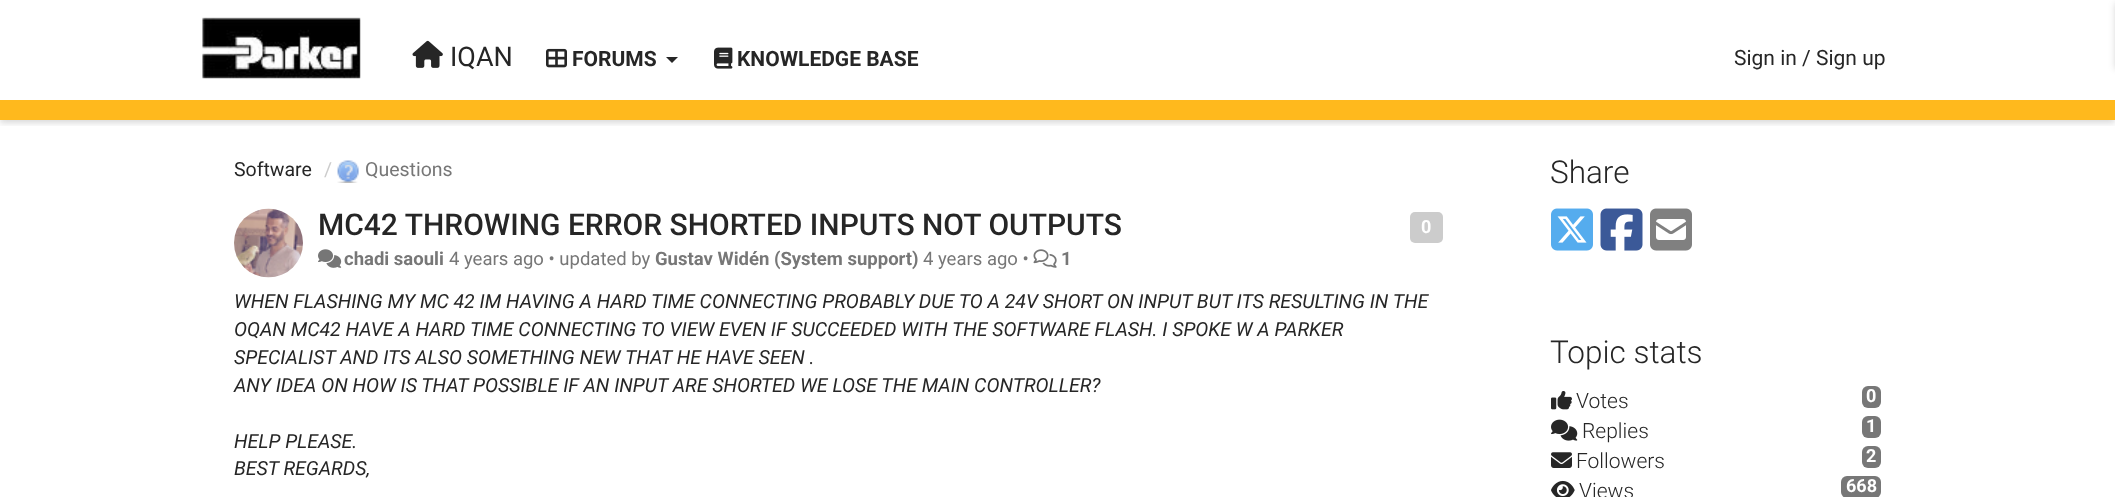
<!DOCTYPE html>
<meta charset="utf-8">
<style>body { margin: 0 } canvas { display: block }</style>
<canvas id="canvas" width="2115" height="497"></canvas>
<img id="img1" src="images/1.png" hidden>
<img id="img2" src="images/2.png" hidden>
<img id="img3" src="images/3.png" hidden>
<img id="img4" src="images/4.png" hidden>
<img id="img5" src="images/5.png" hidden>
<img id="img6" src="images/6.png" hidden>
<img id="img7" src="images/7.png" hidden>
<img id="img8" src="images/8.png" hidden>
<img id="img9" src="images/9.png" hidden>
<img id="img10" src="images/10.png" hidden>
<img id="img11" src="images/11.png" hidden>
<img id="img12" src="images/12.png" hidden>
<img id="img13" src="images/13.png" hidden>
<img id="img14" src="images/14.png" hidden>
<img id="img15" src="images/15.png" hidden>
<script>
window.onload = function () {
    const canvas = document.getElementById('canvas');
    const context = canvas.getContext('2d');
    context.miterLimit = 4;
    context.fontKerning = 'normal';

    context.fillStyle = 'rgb(255, 255, 255)';
    context.fillRect(0, 0, 2115, 497);
    context.save();
    context.beginPath();
    context.rect(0, 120, 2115, 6);
    context.clip();
    context.fillStyle = 'rgba(0, 0, 0, 0.15)';
    context.filter = 'blur(3px)';
    context.beginPath();
    context.rect(0, 3, 2115, 120);
    context.fill();
    context.filter = 'none';
    context.restore();
    context.fillStyle = 'rgb(255, 185, 29)';
    context.fillRect(0, 100, 2115, 20);
    context.drawImage(document.getElementById('img1'), 202, 17, 159, 62);
    context.drawImage(document.getElementById('img2'), 412, 40, 31, 28);
    context.drawImage(document.getElementById('img3'), 546, 48, 21, 20);
    context.fillStyle = 'rgb(38, 38, 38)';
    context.beginPath();
    context.moveTo(666, 57);
    context.lineTo(678, 57);
    context.lineTo(672, 63);
    context.closePath();
    context.fill();
    context.drawImage(document.getElementById('img4'), 714, 47, 19, 22);
    context.fillStyle = 'rgba(0, 0, 0, 0.15)';
    context.filter = 'blur(3px)';
    context.beginPath();
    context.rect(2115, 3, 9, 66);
    context.fill();
    context.filter = 'none';
    context.drawImage(document.getElementById('img5'), 337, 160, 22, 23);
    context.drawImage(document.getElementById('img6'), 234, 208, 69, 70);
    context.fillStyle = 'rgb(204, 204, 204)';
    context.beginPath();
    context.roundRect(1410, 212, 33, 31, 5);
    context.fill();
    context.drawImage(document.getElementById('img7'), 318, 249, 24, 19);
    context.drawImage(document.getElementById('img8'), 1033, 249, 24, 19);
    context.drawImage(document.getElementById('img9'), 1551, 208, 42, 43);
    context.drawImage(document.getElementById('img10'), 1600, 208, 43, 43);
    context.drawImage(document.getElementById('img11'), 1650, 208, 42, 43);
    context.drawImage(document.getElementById('img12'), 1551, 391, 21, 19);
    context.fillStyle = 'rgb(119, 119, 119)';
    context.beginPath();
    context.roundRect(1862, 386, 19, 22, 6);
    context.fill();
    context.drawImage(document.getElementById('img13'), 1551, 419, 27, 22);
    context.beginPath();
    context.roundRect(1862, 416, 19, 22, 6);
    context.fill();
    context.drawImage(document.getElementById('img14'), 1551, 452, 21, 16);
    context.beginPath();
    context.roundRect(1862, 446, 19, 22, 6);
    context.fill();
    context.drawImage(document.getElementById('img15'), 1551, 480, 24, 17);
    context.beginPath();
    context.roundRect(1841, 476, 40, 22, 6);
    context.fill();
    context.font = '27px Roboto';
    context.fillStyle = 'rgb(38, 38, 38)';
    context.fillText('IQAN', 450, 66);
    context.font = 'bold 21px Roboto';
    context.fillText('FORUMS', 572, 66);
    context.fillText('KNOWLEDGE BASE', 737, 66);
    context.font = '21px Roboto';
    context.fillText('Sign in / Sign up', 1734, 65);
    context.font = '19.5px Roboto';
    context.fillText('Software', 234, 176);
    context.fillStyle = 'rgb(204, 204, 204)';
    context.fillText('/', 324, 176);
    context.fillStyle = 'rgb(119, 119, 119)';
    context.fillText('Questions', 365, 176);
    context.font = '500 30px Roboto';
    context.fillStyle = 'rgb(38, 38, 38)';
    context.fillText('MC42 THROWING ERROR SHORTED INPUTS NOT OUTPUTS', 318, 235);
    context.font = 'bold 18px Roboto';
    context.fillStyle = 'rgb(255, 255, 255)';
    context.fillText('0', 1421, 233);
    context.font = 'bold 18.5px Roboto';
    context.fillStyle = 'rgb(119, 119, 119)';
    context.fillText('chadi saouli', 344, 265);
    context.font = '18.5px Roboto';
    context.fillText('4 years ago • updated by', 449, 265);
    context.font = 'bold 18.5px Roboto';
    context.fillText('Gustav Widén (System support)', 655, 265);
    context.font = '18.5px Roboto';
    context.fillText('4 years ago •', 923, 265);
    context.font = 'bold 18.5px Roboto';
    context.fillText('1', 1061, 265);
    context.font = 'italic 19.5px Roboto';
    context.fillStyle = 'rgb(38, 38, 38)';
    context.fillText('WHEN FLASHING MY MC 42 IM HAVING A HARD TIME CONNECTING PROBABLY DUE TO A 24V SHORT ON INPUT BUT ITS RESULTING IN THE', 234, 308);
    context.fillText('OQAN MC42 HAVE A HARD TIME CONNECTING TO VIEW EVEN IF SUCCEEDED WITH THE SOFTWARE FLASH. I SPOKE W A PARKER', 234, 336);
    context.fillText('SPECIALIST AND ITS ALSO SOMETHING NEW THAT HE HAVE SEEN .', 234, 364);
    context.fillText('ANY IDEA ON HOW IS THAT POSSIBLE IF AN INPUT ARE SHORTED WE LOSE THE MAIN CONTROLLER?', 234, 392);
    context.fillText('HELP PLEASE.', 234, 448);
    context.fillText('BEST REGARDS,', 234, 475);
    context.font = '300 31.5px Roboto';
    context.fillText('Share', 1550, 183);
    context.fillText('Topic stats', 1550, 363);
    context.font = '300 21px Roboto';
    context.fillText('Votes', 1576, 408);
    context.font = 'bold 18px Roboto';
    context.fillStyle = 'rgb(255, 255, 255)';
    context.fillText('0', 1866, 402);
    context.font = '300 21px Roboto';
    context.fillStyle = 'rgb(38, 38, 38)';
    context.fillText('Replies', 1582, 438);
    context.font = 'bold 18px Roboto';
    context.fillStyle = 'rgb(255, 255, 255)';
    context.fillText('1', 1866, 432);
    context.font = '300 21px Roboto';
    context.fillStyle = 'rgb(38, 38, 38)';
    context.fillText('Followers', 1576, 468);
    context.font = 'bold 18px Roboto';
    context.fillStyle = 'rgb(255, 255, 255)';
    context.fillText('2', 1866, 462);
    context.font = '300 21px Roboto';
    context.fillStyle = 'rgb(38, 38, 38)';
    context.fillText('Views', 1579, 498);
    context.font = 'bold 18px Roboto';
    context.fillStyle = 'rgb(255, 255, 255)';
    context.fillText('668', 1846, 492);
};
</script>
